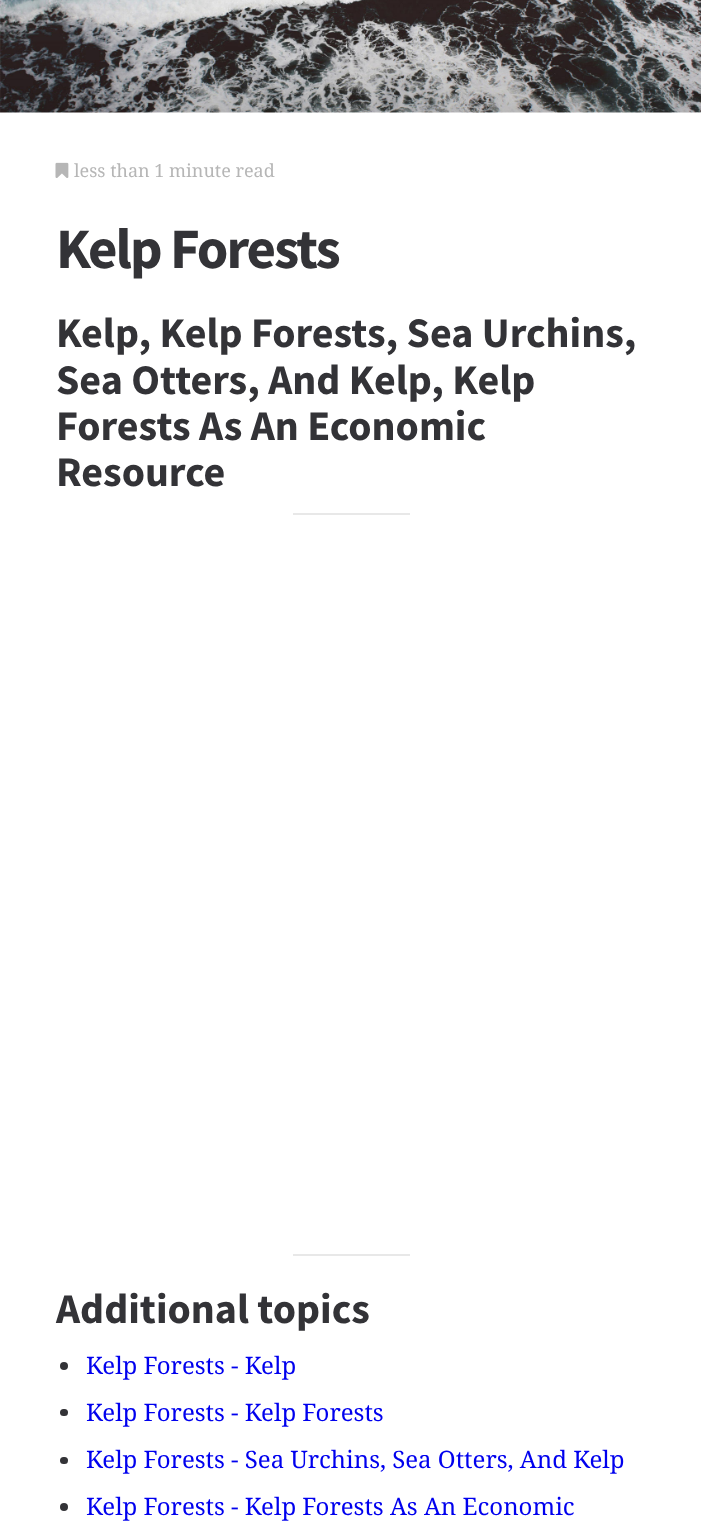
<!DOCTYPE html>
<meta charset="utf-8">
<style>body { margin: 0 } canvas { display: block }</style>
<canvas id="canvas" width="701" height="1521"></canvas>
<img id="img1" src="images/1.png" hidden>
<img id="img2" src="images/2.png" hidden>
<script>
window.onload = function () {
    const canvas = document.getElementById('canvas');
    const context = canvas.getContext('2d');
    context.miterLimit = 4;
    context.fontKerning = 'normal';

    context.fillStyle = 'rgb(255, 255, 255)';
    context.fillRect(0, 0, 701, 1521);
    context.drawImage(document.getElementById('img1'), 0, 0, 701, 113);
    context.drawImage(document.getElementById('img2'), 55, 162, 14, 16);
    context.fillStyle = 'rgb(232, 232, 232)';
    context.fillRect(293, 513, 117, 2);
    context.fillRect(293, 1254, 117, 2);
    context.fillStyle = 'rgb(51, 51, 55)';
    context.beginPath();
    context.arc(64, 1366, 4, 0, 2 * Math.PI);
    context.fill();
    context.beginPath();
    context.roundRect(60, 1409, 8, 7, 3.5);
    context.fill();
    context.beginPath();
    context.roundRect(60, 1457, 8, 7, 3.5);
    context.fill();
    context.beginPath();
    context.arc(64, 1507, 4, 0, 2 * Math.PI);
    context.fill();
    context.font = '18px Droid Serif';
    context.fillStyle = 'rgb(182, 182, 182)';
    context.fillText('less than 1 minute read', 74, 177);
    context.letterSpacing = '-2px';
    context.font = 'bold 57px Source Sans Pro';
    context.fillStyle = 'rgb(51, 51, 55)';
    context.fillText('Kelp Forests', 56, 268);
    context.letterSpacing = '0px';
    context.font = 'bold 42px Source Sans Pro';
    context.fillText('Kelp, Kelp Forests, Sea Urchins,', 56, 347);
    context.fillText('Sea Otters, And Kelp, Kelp', 56, 394);
    context.fillText('Forests As An Economic', 56, 440);
    context.fillText('Resource', 56, 486);
    context.fillText('Additional topics', 56, 1323);
    context.font = '24px Droid Serif';
    context.fillStyle = 'rgb(0, 0, 238)';
    context.fillText('Kelp Forests - Kelp', 86, 1374);
    context.fillText('Kelp Forests - Kelp Forests', 86, 1421);
    context.fillText('Kelp Forests - Sea Urchins, Sea Otters, And Kelp', 86, 1468);
    context.fillText('Kelp Forests - Kelp Forests As An Economic', 86, 1515);
};
</script>
